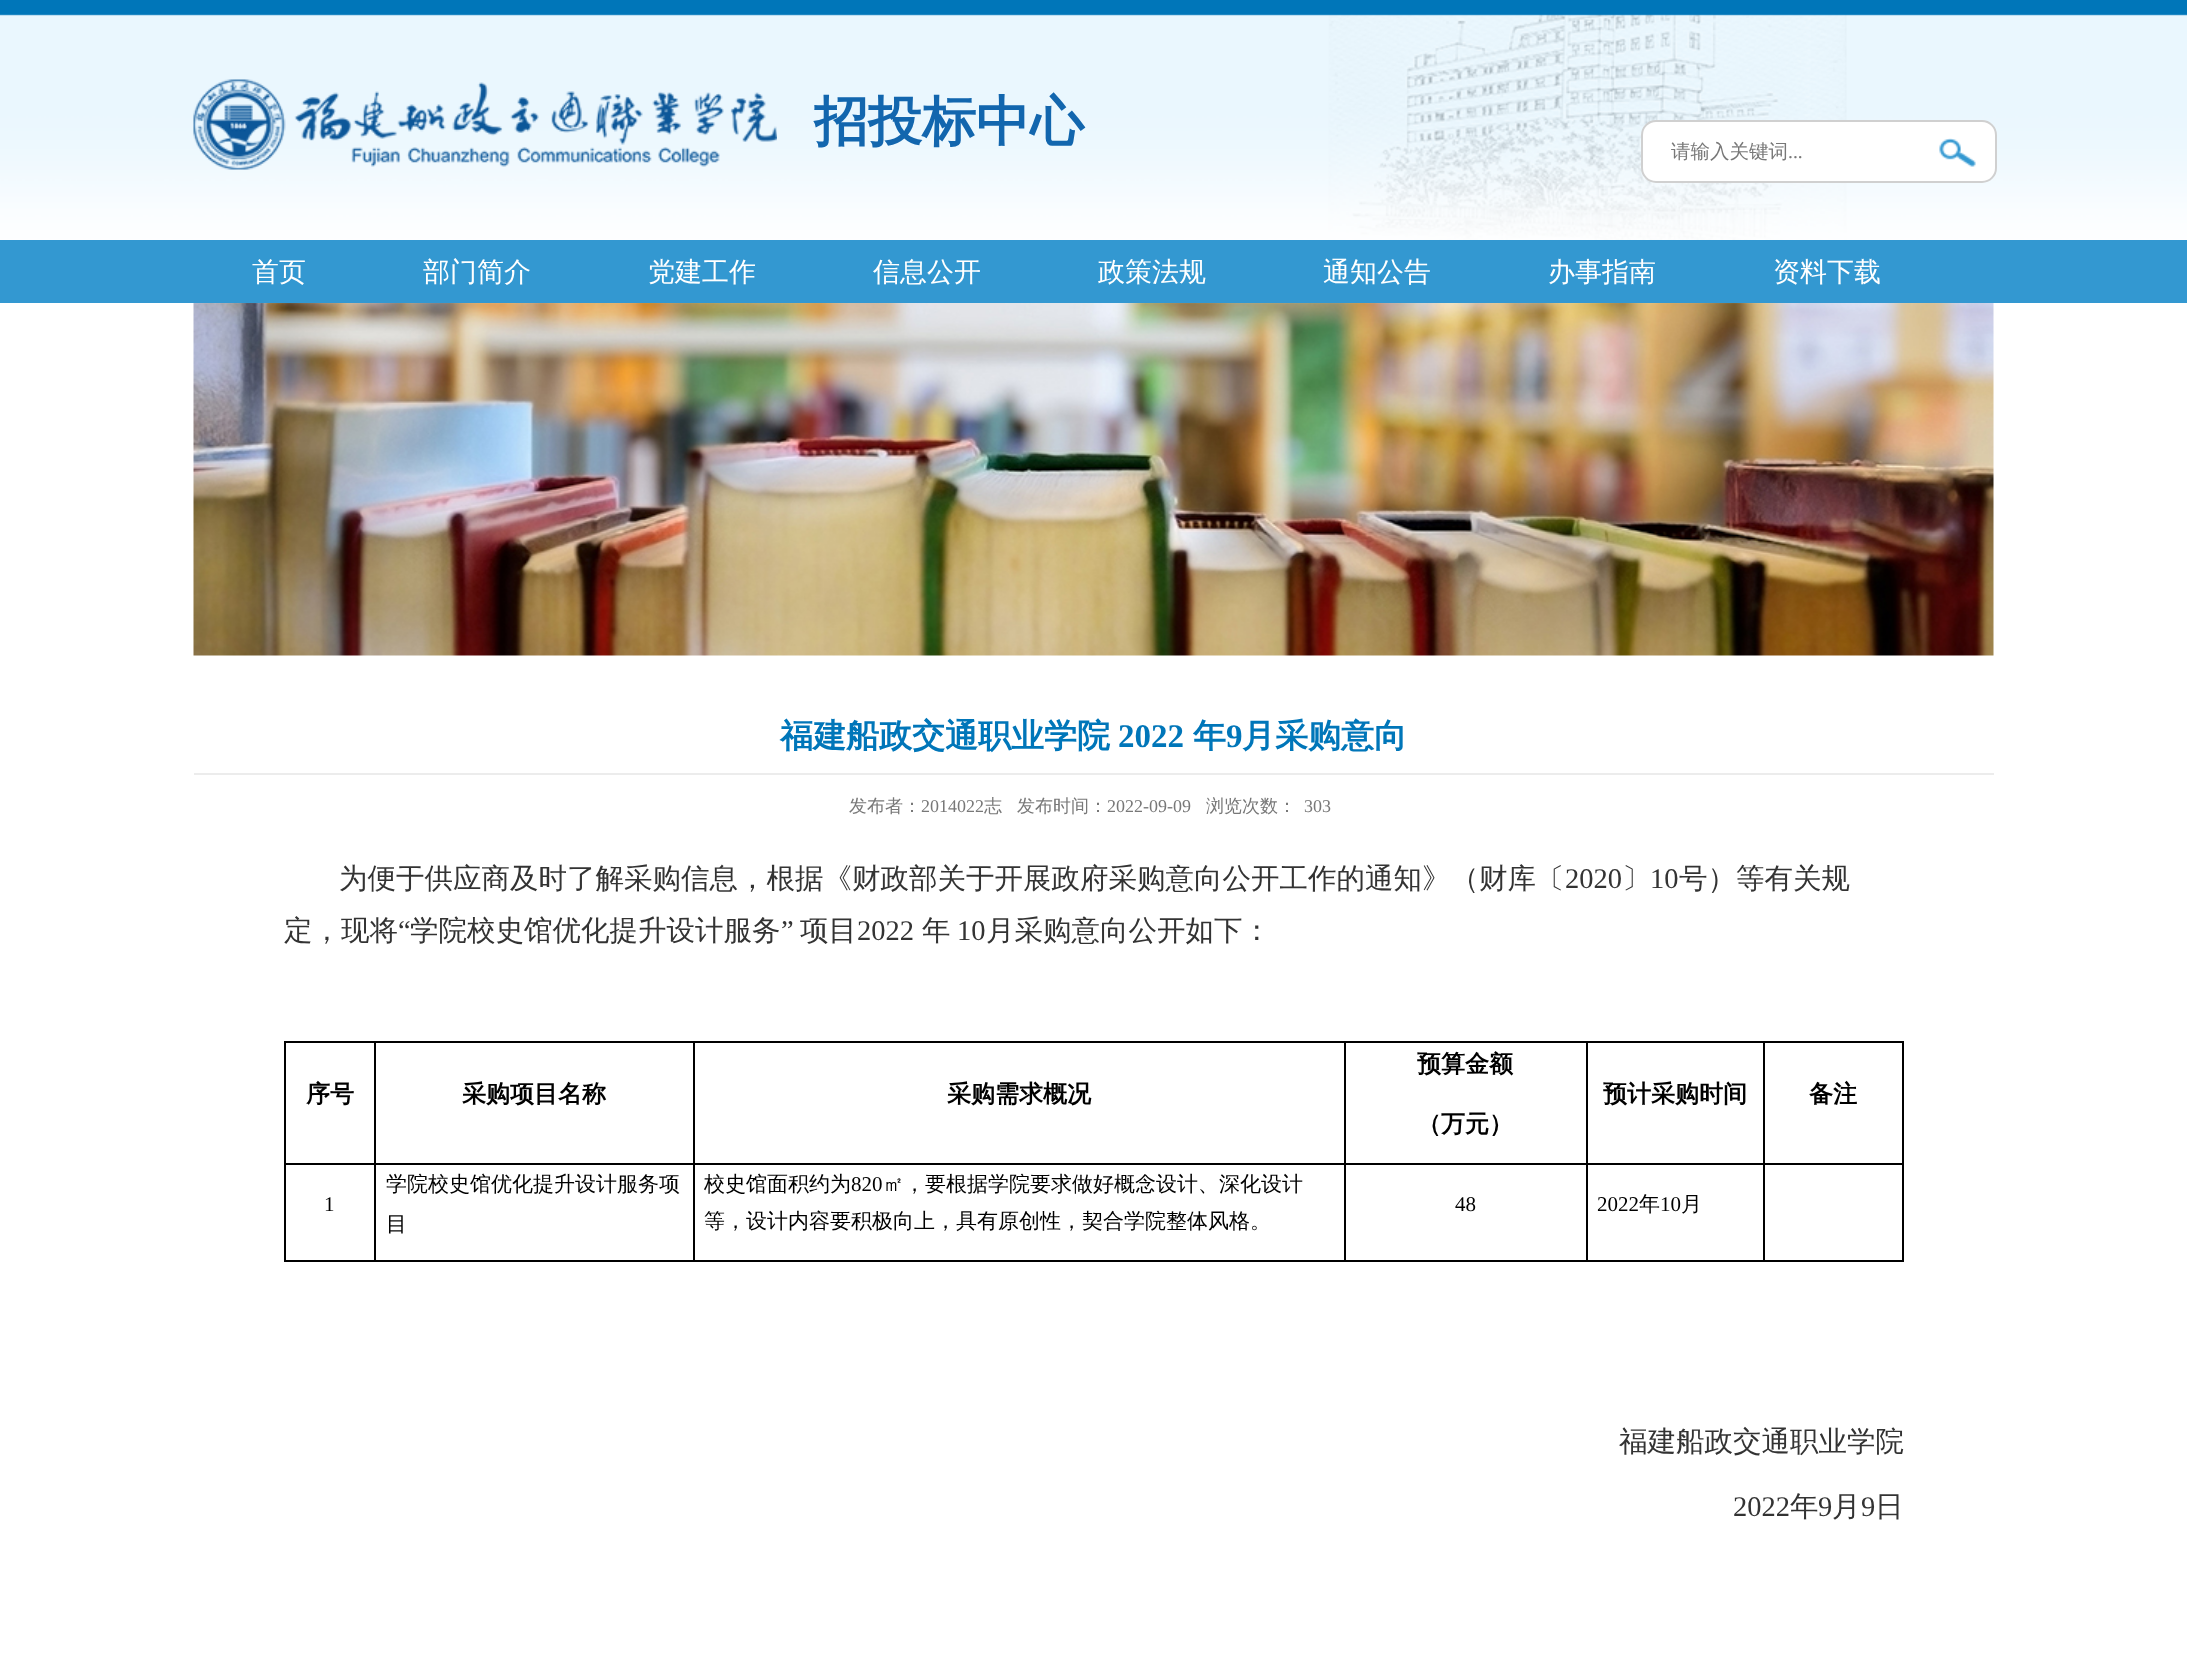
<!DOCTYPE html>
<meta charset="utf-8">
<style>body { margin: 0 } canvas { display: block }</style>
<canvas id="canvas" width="2187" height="1662"></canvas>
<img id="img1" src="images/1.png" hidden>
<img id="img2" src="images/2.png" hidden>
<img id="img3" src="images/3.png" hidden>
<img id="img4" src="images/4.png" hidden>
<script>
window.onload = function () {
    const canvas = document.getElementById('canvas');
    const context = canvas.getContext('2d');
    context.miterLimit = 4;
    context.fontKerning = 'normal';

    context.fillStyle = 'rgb(255, 255, 255)';
    context.fillRect(0, 0, 2187, 1662);
    context.drawImage(document.getElementById('img1'), 0, 0, 2187, 240);
    context.drawImage(document.getElementById('img2'), 193, 79, 584, 91);
    context.beginPath();
    context.roundRect(1642, 121, 354, 61, 14);
    context.fill();
    context.strokeStyle = 'rgb(208, 208, 208)';
    context.lineWidth = 2;
    context.stroke();
    context.drawImage(document.getElementById('img3'), 1939, 138, 37, 29);
    context.fillStyle = 'rgb(51, 152, 209)';
    context.fillRect(0, 240, 2187, 63);
    context.drawImage(document.getElementById('img4'), 193, 303, 1801, 353);
    context.fillStyle = 'rgb(236, 236, 236)';
    context.fillRect(194, 773, 1800, 2);
    context.fillStyle = 'rgb(0, 0, 0)';
    context.fillRect(284, 1041, 1620, 2);
    context.fillRect(1902, 1163, 2, 99);
    context.fillRect(1902, 1041, 2, 123);
    context.fillRect(1763, 1260, 141, 2);
    context.fillRect(1763, 1163, 2, 99);
    context.fillRect(1763, 1163, 141, 2);
    context.fillRect(1763, 1041, 2, 123);
    context.fillRect(1586, 1260, 178, 2);
    context.fillRect(1586, 1163, 2, 99);
    context.fillRect(1586, 1163, 178, 2);
    context.fillRect(1586, 1041, 2, 123);
    context.fillRect(1344, 1260, 243, 2);
    context.fillRect(1344, 1163, 2, 99);
    context.fillRect(1344, 1163, 243, 2);
    context.fillRect(1344, 1041, 2, 123);
    context.fillRect(693, 1260, 653, 2);
    context.fillRect(693, 1163, 2, 99);
    context.fillRect(693, 1163, 653, 2);
    context.fillRect(693, 1041, 2, 123);
    context.fillRect(374, 1260, 321, 2);
    context.fillRect(374, 1163, 2, 99);
    context.fillRect(374, 1163, 321, 2);
    context.fillRect(374, 1041, 2, 123);
    context.fillRect(284, 1260, 91, 2);
    context.fillRect(284, 1163, 2, 99);
    context.fillRect(284, 1163, 91, 2);
    context.fillRect(284, 1041, 2, 123);
    context.font = 'bold 54px WenQuanYi Zen Hei';
    context.fillStyle = 'rgb(18, 102, 174)';
    context.fillText('招投标中心', 814, 140);
    context.font = '500 19.5px WenQuanYi Zen Hei';
    context.fillStyle = 'rgb(120, 120, 120)';
    context.fillText('请输入关键词', 1671, 158);
    context.font = '19.5px Liberation Serif';
    context.fillText('...', 1788, 158);
    context.font = '500 27px WenQuanYi Zen Hei';
    context.fillStyle = 'rgb(255, 255, 255)';
    context.fillText('首页', 252, 281);
    context.fillText('部门简介', 423, 281);
    context.fillText('党建工作', 648, 281);
    context.fillText('信息公开', 873, 281);
    context.fillText('政策法规', 1098, 281);
    context.fillText('通知公告', 1323, 281);
    context.fillText('办事指南', 1548, 281);
    context.fillText('资料下载', 1773, 281);
    context.font = 'bold 33px WenQuanYi Zen Hei';
    context.fillStyle = 'rgb(0, 118, 185)';
    context.fillText('福建船政交通职业学院', 780, 747);
    context.font = 'bold 33px Liberation Serif';
    context.fillText('2022', 1118, 747);
    context.font = 'bold 33px WenQuanYi Zen Hei';
    context.fillText('年', 1193, 747);
    context.font = 'bold 33px Liberation Serif';
    context.fillText('9', 1226, 747);
    context.font = 'bold 33px WenQuanYi Zen Hei';
    context.fillText('月采购意向', 1242, 747);
    context.font = '500 18px WenQuanYi Zen Hei';
    context.fillStyle = 'rgb(120, 120, 120)';
    context.fillText('发布者：', 849, 812);
    context.font = '18px Liberation Serif';
    context.fillText('2014022', 921, 812);
    context.font = '500 18px WenQuanYi Zen Hei';
    context.fillText('志', 984, 812);
    context.fillText('发布时间：', 1017, 812);
    context.font = '18px Liberation Serif';
    context.fillText('2022-09-09', 1107, 812);
    context.font = '500 18px WenQuanYi Zen Hei';
    context.fillText('浏览次数：', 1206, 812);
    context.font = '18px Liberation Serif';
    context.fillText('303', 1304, 812);
    context.font = '500 28.5px WenQuanYi Zen Hei';
    context.fillStyle = 'rgb(51, 51, 51)';
    context.fillText('为便于供应商及时了解采购信息，根据《财政部关于开展政府采购意向公开工作的通知》（财库〔', 339, 888);
    context.font = '28.5px Liberation Serif';
    context.fillText('2020', 1565, 888);
    context.font = '500 28.5px WenQuanYi Zen Hei';
    context.fillText('〕', 1622, 888);
    context.font = '28.5px Liberation Serif';
    context.fillText('10', 1650, 888);
    context.font = '500 28.5px WenQuanYi Zen Hei';
    context.fillText('号）等有关规', 1679, 888);
    context.fillText('定，现将', 284, 940);
    context.font = '28.5px Liberation Serif';
    context.fillText('“', 398, 940);
    context.font = '500 28.5px WenQuanYi Zen Hei';
    context.fillText('学院校史馆优化提升设计服务', 410, 940);
    context.font = '28.5px Liberation Serif';
    context.fillText('”', 781, 940);
    context.font = '500 28.5px WenQuanYi Zen Hei';
    context.fillText('项目', 800, 940);
    context.font = '28.5px Liberation Serif';
    context.fillText('2022', 857, 940);
    context.font = '500 28.5px WenQuanYi Zen Hei';
    context.fillText('年', 922, 940);
    context.font = '28.5px Liberation Serif';
    context.fillText('10', 957, 940);
    context.font = '500 28.5px WenQuanYi Zen Hei';
    context.fillText('月采购意向公开如下：', 986, 940);
    context.font = 'bold 24px WenQuanYi Zen Hei';
    context.fillStyle = 'rgb(0, 0, 0)';
    context.fillText('序号', 306, 1102);
    context.fillText('采购项目名称', 462, 1102);
    context.fillText('采购需求概况', 947, 1102);
    context.fillText('预算金额', 1417, 1072);
    context.fillText('（万元）', 1417, 1132);
    context.fillText('预计采购时间', 1603, 1102);
    context.fillText('备注', 1809, 1102);
    context.font = '21px Liberation Serif';
    context.fillText('1', 324, 1211);
    context.font = '500 21px WenQuanYi Zen Hei';
    context.fillText('学院校史馆优化提升设计服务项', 386, 1191);
    context.fillText('目', 386, 1231);
    context.fillText('校史馆面积约为', 704, 1191);
    context.font = '21px Liberation Serif';
    context.fillText('820', 851, 1191);
    context.font = '500 21px WenQuanYi Zen Hei';
    context.fillText('㎡，要根据学院要求做好概念设计、深化设计', 883, 1191);
    context.fillText('等，设计内容要积极向上，具有原创性，契合学院整体风格。', 704, 1228);
    context.font = '21px Liberation Serif';
    context.fillText('48', 1455, 1211);
    context.fillText('2022', 1597, 1211);
    context.font = '500 21px WenQuanYi Zen Hei';
    context.fillText('年', 1639, 1211);
    context.font = '21px Liberation Serif';
    context.fillText('10', 1660, 1211);
    context.font = '500 21px WenQuanYi Zen Hei';
    context.fillText('月', 1681, 1211);
    context.font = '500 28.5px WenQuanYi Zen Hei';
    context.fillStyle = 'rgb(51, 51, 51)';
    context.fillText('福建船政交通职业学院', 1619, 1451);
    context.font = '28.5px Liberation Serif';
    context.fillText('2022', 1733, 1516);
    context.font = '500 28.5px WenQuanYi Zen Hei';
    context.fillText('年', 1790, 1516);
    context.font = '28.5px Liberation Serif';
    context.fillText('9', 1818, 1516);
    context.font = '500 28.5px WenQuanYi Zen Hei';
    context.fillText('月', 1832, 1516);
    context.font = '28.5px Liberation Serif';
    context.fillText('9', 1861, 1516);
    context.font = '500 28.5px WenQuanYi Zen Hei';
    context.fillText('日', 1875, 1516);
};
</script>
